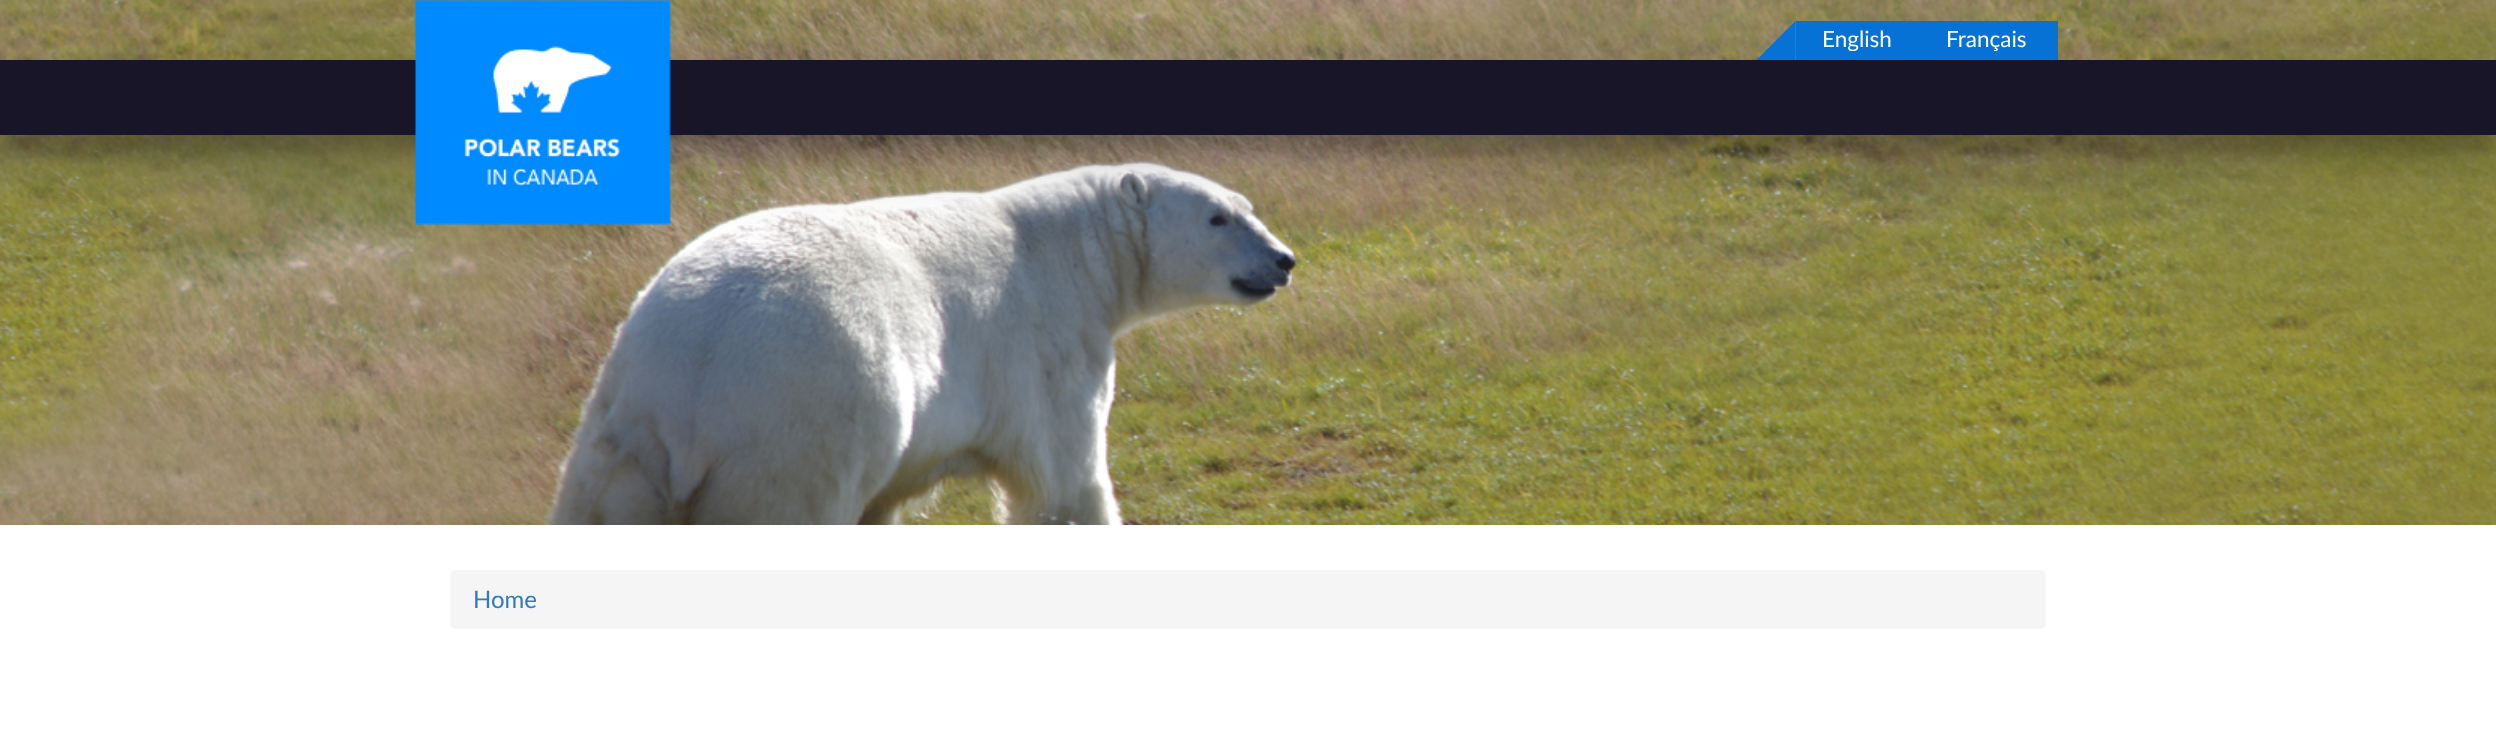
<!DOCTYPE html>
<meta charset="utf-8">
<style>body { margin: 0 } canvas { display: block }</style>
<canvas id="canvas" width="2496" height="738"></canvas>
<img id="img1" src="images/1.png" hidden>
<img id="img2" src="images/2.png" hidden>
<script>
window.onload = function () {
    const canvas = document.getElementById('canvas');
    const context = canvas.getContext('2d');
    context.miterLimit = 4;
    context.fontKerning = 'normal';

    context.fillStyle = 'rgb(255, 255, 255)';
    context.fillRect(0, 0, 2496, 738);
    context.drawImage(document.getElementById('img1'), 0, 0, 2496, 525);
    context.fillStyle = 'rgba(0, 0, 0, 0.19)';
    context.filter = 'blur(37.5px)';
    context.beginPath();
    context.rect(0, 86, 2496, 75);
    context.fill();
    context.filter = 'none';
    context.fillStyle = 'rgba(0, 0, 0, 0.24)';
    context.filter = 'blur(11px)';
    context.beginPath();
    context.rect(0, 78, 2496, 75);
    context.fill();
    context.filter = 'none';
    context.fillStyle = 'rgb(24, 21, 40)';
    context.fillRect(0, 60, 2496, 75);
    context.drawImage(document.getElementById('img2'), 415, 0, 256, 225);
    context.fillStyle = 'rgb(6, 114, 214)';
    context.beginPath();
    context.moveTo(1795.5, 21);
    context.lineTo(1795.5, 60);
    context.lineTo(1756.5, 60);
    context.closePath();
    context.fill();
    context.fillRect(1796, 21, 262, 39);
    context.fillStyle = 'rgb(245, 245, 245)';
    context.beginPath();
    context.roundRect(450, 570, 1596, 59, 6);
    context.fill();
    context.font = '22.5px Lato';
    context.fillStyle = 'rgb(255, 255, 255)';
    context.fillText('English', 1822, 47);
    context.fillText('Français', 1946, 47);
    context.font = '24px Lato';
    context.fillStyle = 'rgb(51, 122, 183)';
    context.fillText('Home', 473, 608);
};
</script>
